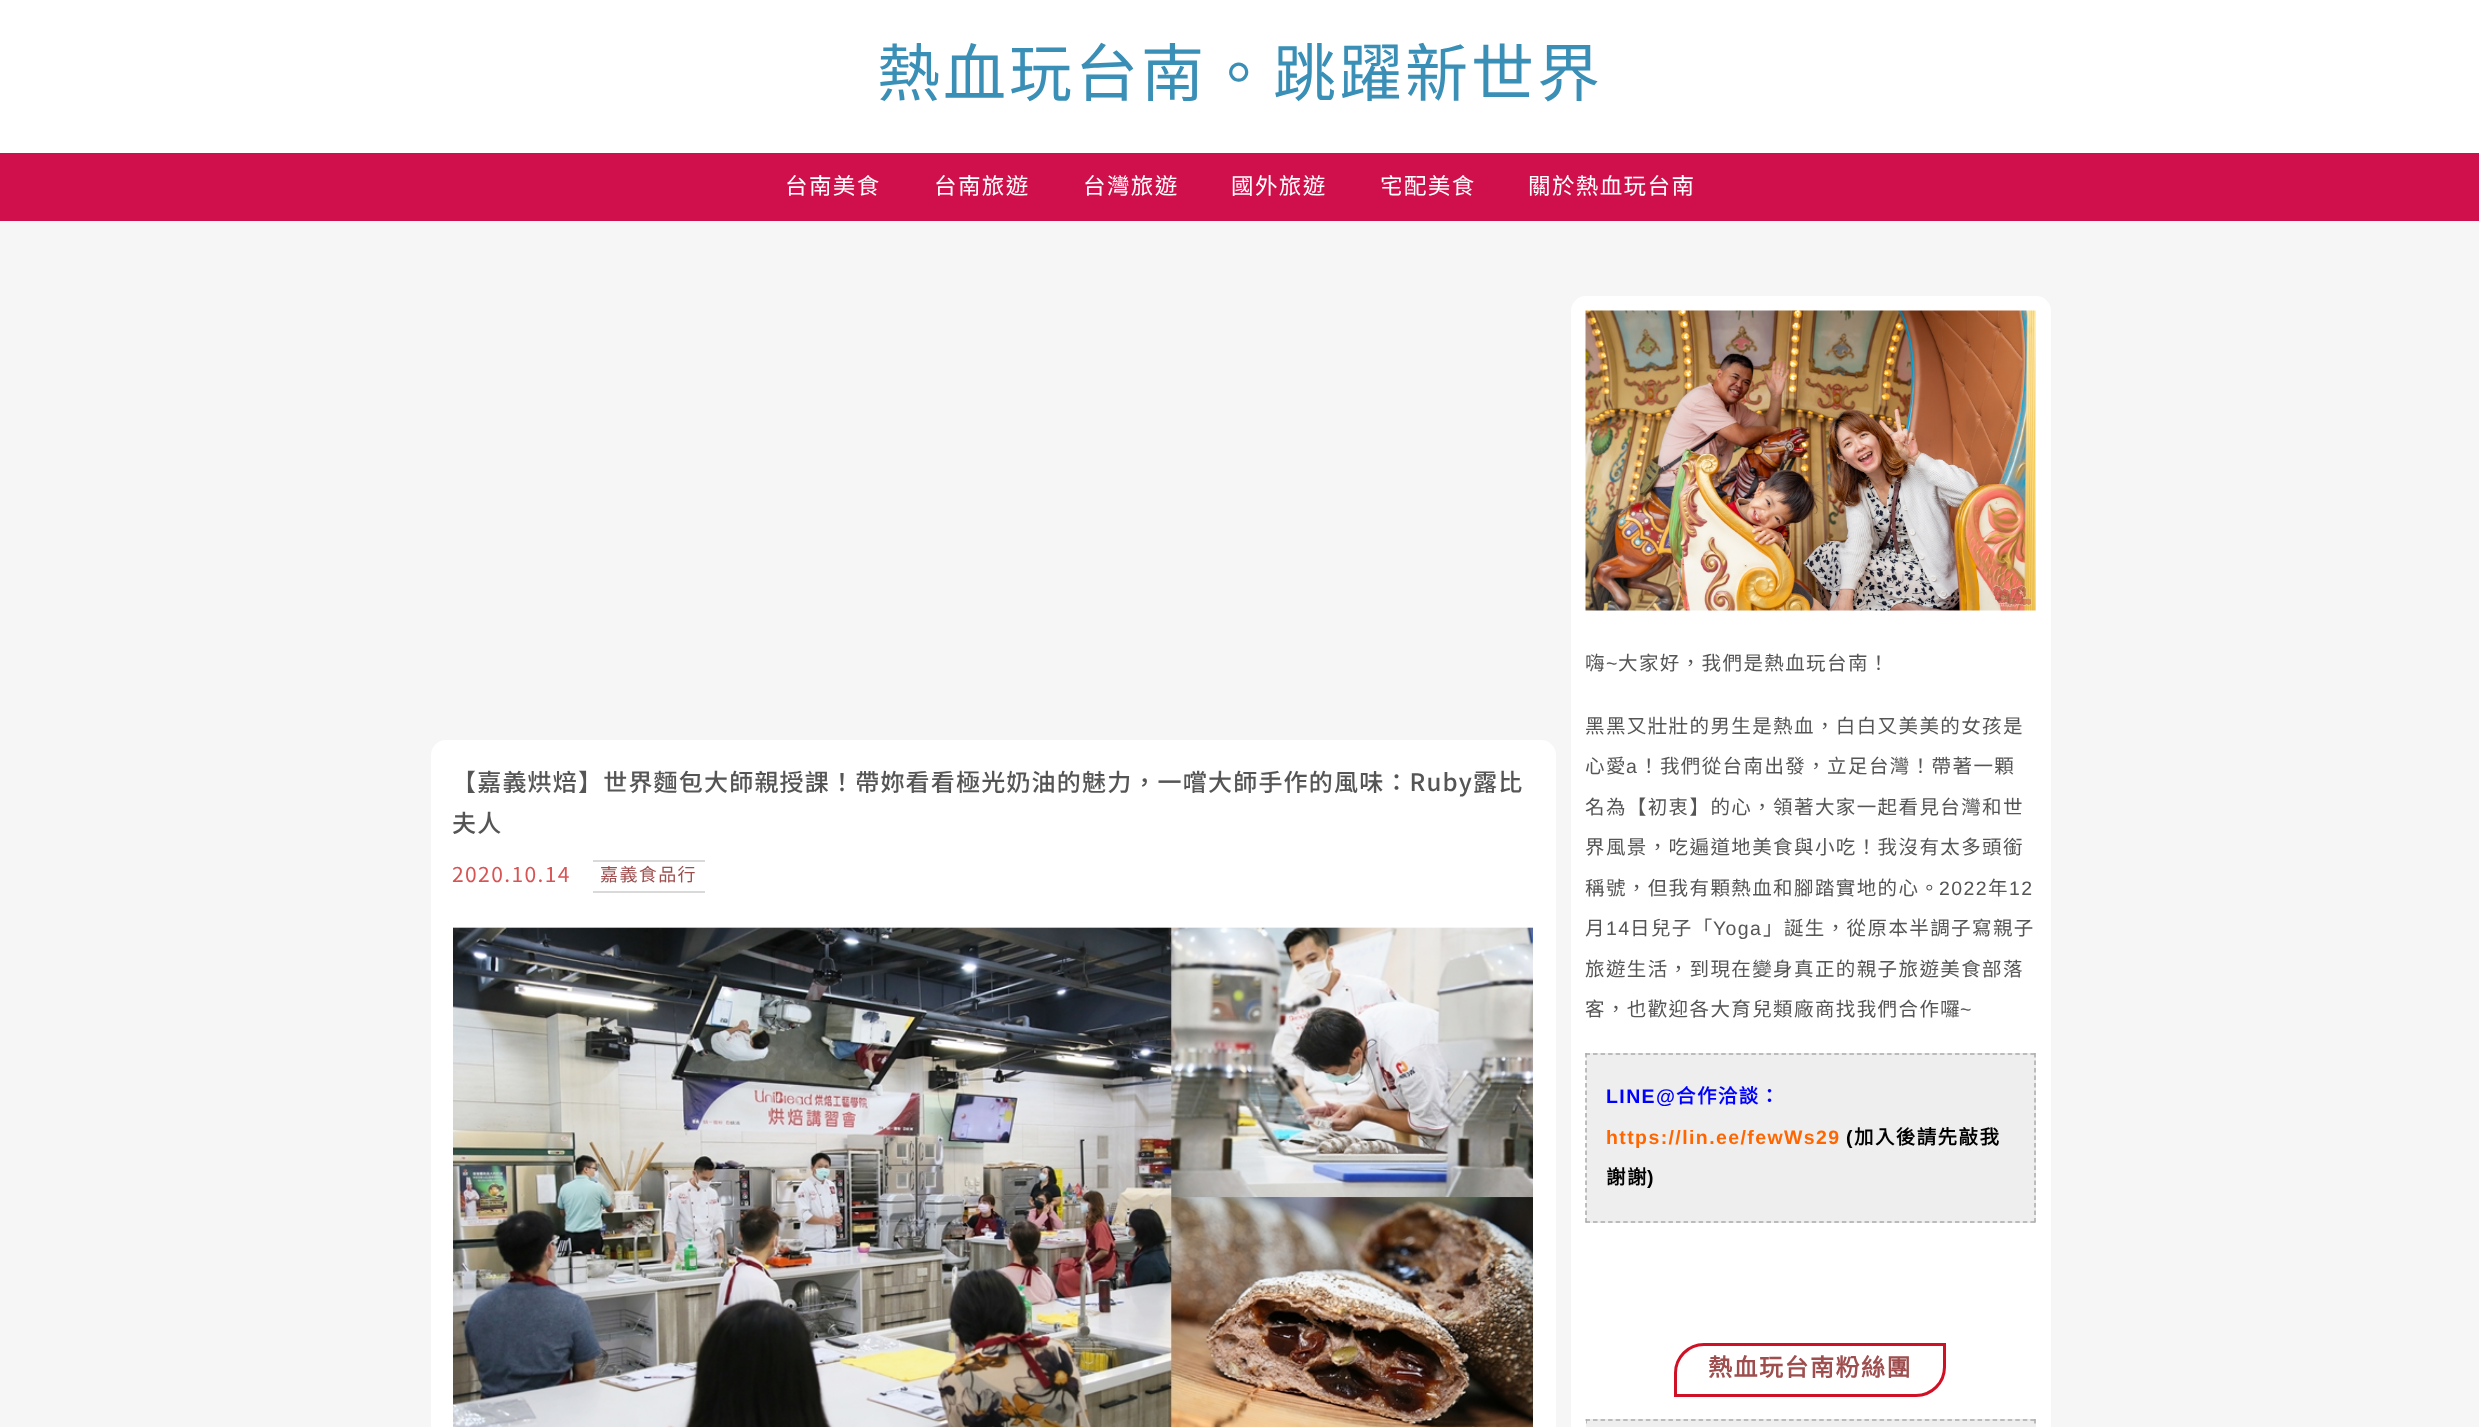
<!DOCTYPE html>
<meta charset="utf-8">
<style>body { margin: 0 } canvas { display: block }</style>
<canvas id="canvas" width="2479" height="1427"></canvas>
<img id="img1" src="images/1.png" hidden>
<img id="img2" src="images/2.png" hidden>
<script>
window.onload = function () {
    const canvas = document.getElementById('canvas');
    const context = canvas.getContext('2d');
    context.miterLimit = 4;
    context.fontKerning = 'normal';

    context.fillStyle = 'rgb(246, 246, 246)';
    context.fillRect(0, 0, 2479, 1427);
    context.fillStyle = 'rgb(255, 255, 255)';
    context.fillRect(0, 0, 2479, 153);
    context.fillStyle = 'rgb(208, 16, 76)';
    context.fillRect(0, 153, 2479, 68);
    context.fillStyle = 'rgb(255, 255, 255)';
    context.beginPath();
    context.roundRect(431, 740, 1125, 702, 15);
    context.fill();
    context.fillStyle = 'rgb(217, 217, 217)';
    context.fillRect(593, 860, 112, 2);
    context.fillRect(593, 891, 112, 2);
    context.drawImage(document.getElementById('img1'), 453, 927, 1080, 500);
    context.fillStyle = 'rgb(255, 255, 255)';
    context.beginPath();
    context.roundRect(1571, 296, 480, 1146, 15);
    context.fill();
    context.drawImage(document.getElementById('img2'), 1585, 310, 451, 301);
    context.fillStyle = 'rgb(238, 238, 238)';
    context.fillRect(1586, 1053, 450, 170);
    context.beginPath();
    context.moveTo(1585.5, 1054);
    context.lineTo(2035.5, 1054);
    context.strokeStyle = 'rgb(170, 170, 170)';
    context.lineWidth = 1.5;
    context.setLineDash([4.5, 3.04]);
    context.stroke();
    context.beginPath();
    context.moveTo(2035, 1053);
    context.lineTo(2035, 1222.5);
    context.setLineDash([4.5, 3]);
    context.stroke();
    context.beginPath();
    context.moveTo(1585.5, 1222);
    context.lineTo(2035.5, 1222);
    context.setLineDash([4.5, 3.04]);
    context.stroke();
    context.beginPath();
    context.moveTo(1586, 1053);
    context.lineTo(1586, 1222.5);
    context.setLineDash([4.5, 3]);
    context.stroke();
    context.beginPath();
    context.roundRect(1675.5, 1344.5, 269, 51, [28.5, 0, 28.5, 0]);
    context.strokeStyle = 'rgb(208, 16, 36)';
    context.lineWidth = 3;
    context.setLineDash([]);
    context.stroke();
    context.fillRect(1586, 1419, 450, 8);
    context.beginPath();
    context.moveTo(1585.5, 1420);
    context.lineTo(2035.5, 1420);
    context.strokeStyle = 'rgb(170, 170, 170)';
    context.lineWidth = 1.5;
    context.setLineDash([4.5, 3.04]);
    context.stroke();
    context.beginPath();
    context.moveTo(2035, 1419);
    context.lineTo(2035, 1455);
    context.setLineDash([4.5, 3.38]);
    context.stroke();
    context.save();
    context.beginPath();
    context.rect(1586, 1298, 450, 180);
    context.clip();
    context.beginPath();
    context.moveTo(1586, 1419);
    context.lineTo(1586, 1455);
    context.stroke();
    context.restore();
    context.letterSpacing = '3px';
    context.font = '63px Noto Sans CJK TC';
    context.fillStyle = 'rgb(58, 143, 183)';
    context.fillText('熱血玩台南。跳躍新世界', 877, 96);
    context.letterSpacing = '1.4px';
    context.font = '22.5px Noto Sans CJK TC';
    context.fillStyle = 'rgb(255, 255, 255)';
    context.fillText('台南美食', 785, 194);
    context.fillText('台南旅遊', 934, 194);
    context.fillText('台灣旅遊', 1083, 194);
    context.fillText('國外旅遊', 1231, 194);
    context.fillText('宅配美食', 1380, 194);
    context.fillText('關於熱血玩台南', 1528, 194);
    context.letterSpacing = '1.2px';
    context.font = '500 24px Noto Sans TC';
    context.fillStyle = 'rgb(85, 85, 85)';
    context.fillText('【嘉義烘焙】世界麵包大師親授課！帶妳看看極光奶油的魅力，一嚐大師手作的風味：Ruby露比', 452, 791);
    context.fillText('夫人', 452, 832);
    context.letterSpacing = '1.4px';
    context.font = '21px Noto Sans TC';
    context.fillStyle = 'rgb(215, 84, 85)';
    context.fillText('2020.10.14', 452, 882);
    context.font = '18px Noto Sans CJK TC';
    context.fillStyle = 'rgb(158, 78, 78)';
    context.fillText('嘉義食品行', 600, 881);
    context.font = '19.5px Noto Sans CJK TC';
    context.fillStyle = 'rgb(85, 85, 85)';
    context.fillText('嗨', 1585, 670);
    context.font = '19.5px Liberation Sans';
    context.fillText('~', 1606, 670);
    context.font = '19.5px Noto Sans CJK TC';
    context.fillText('大家好，我們是熱血玩台南！', 1618, 670);
    context.fillText('黑黑又壯壯的男生是熱血，白白又美美的女孩是', 1585, 733);
    context.fillText('心愛', 1585, 773);
    context.font = '19.5px Liberation Sans';
    context.fillText('a', 1626, 773);
    context.font = '19.5px Noto Sans CJK TC';
    context.fillText('！我們從台南出發，立足台灣！帶著一顆', 1639, 773);
    context.fillText('名為【初衷】的心，領著大家一起看見台灣和世', 1585, 814);
    context.fillText('界風景，吃遍道地美食與小吃！我沒有太多頭銜', 1585, 854);
    context.fillText('稱號，但我有顆熱血和腳踏實地的心。', 1585, 895);
    context.font = '19.5px Liberation Sans';
    context.fillText('2022', 1939, 895);
    context.font = '19.5px Noto Sans CJK TC';
    context.fillText('年', 1988, 895);
    context.font = '19.5px Liberation Sans';
    context.fillText('12', 2009, 895);
    context.font = '19.5px Noto Sans CJK TC';
    context.fillText('月', 1585, 935);
    context.font = '19.5px Liberation Sans';
    context.fillText('14', 1606, 935);
    context.font = '19.5px Noto Sans CJK TC';
    context.fillText('日兒子「', 1630, 935);
    context.font = '19.5px Liberation Sans';
    context.fillText('Yoga', 1713, 935);
    context.font = '19.5px Noto Sans CJK TC';
    context.fillText('」誕生，從原本半調子寫親子', 1763, 935);
    context.fillText('旅遊生活，到現在變身真正的親子旅遊美食部落', 1585, 976);
    context.fillText('客，也歡迎各大育兒類廠商找我們合作囉', 1585, 1016);
    context.font = '19.5px Liberation Sans';
    context.fillText('~', 1960, 1016);
    context.font = 'bold 19.5px Liberation Sans';
    context.fillStyle = 'rgb(0, 0, 255)';
    context.fillText('LINE@', 1606, 1103);
    context.font = 'bold 19.5px Noto Sans CJK TC';
    context.fillText('合作洽談：', 1676, 1103);
    context.font = 'bold 19.5px Liberation Sans';
    context.fillStyle = 'rgb(255, 102, 0)';
    context.fillText('https://lin.ee/fewWs29', 1606, 1144);
    context.fillStyle = 'rgb(0, 0, 0)';
    context.fillText('(', 1846, 1144);
    context.font = 'bold 19.5px Noto Sans CJK TC';
    context.fillText('加入後請先敲我', 1854, 1144);
    context.fillText('謝謝', 1606, 1184);
    context.font = 'bold 19.5px Liberation Sans';
    context.fillText(')', 1647, 1184);
    context.letterSpacing = '1.5px';
    context.font = 'bold 24px Noto Sans CJK TC';
    context.fillStyle = 'rgb(158, 78, 78)';
    context.fillText('熱血玩台南粉絲團', 1708, 1376);
};
</script>
